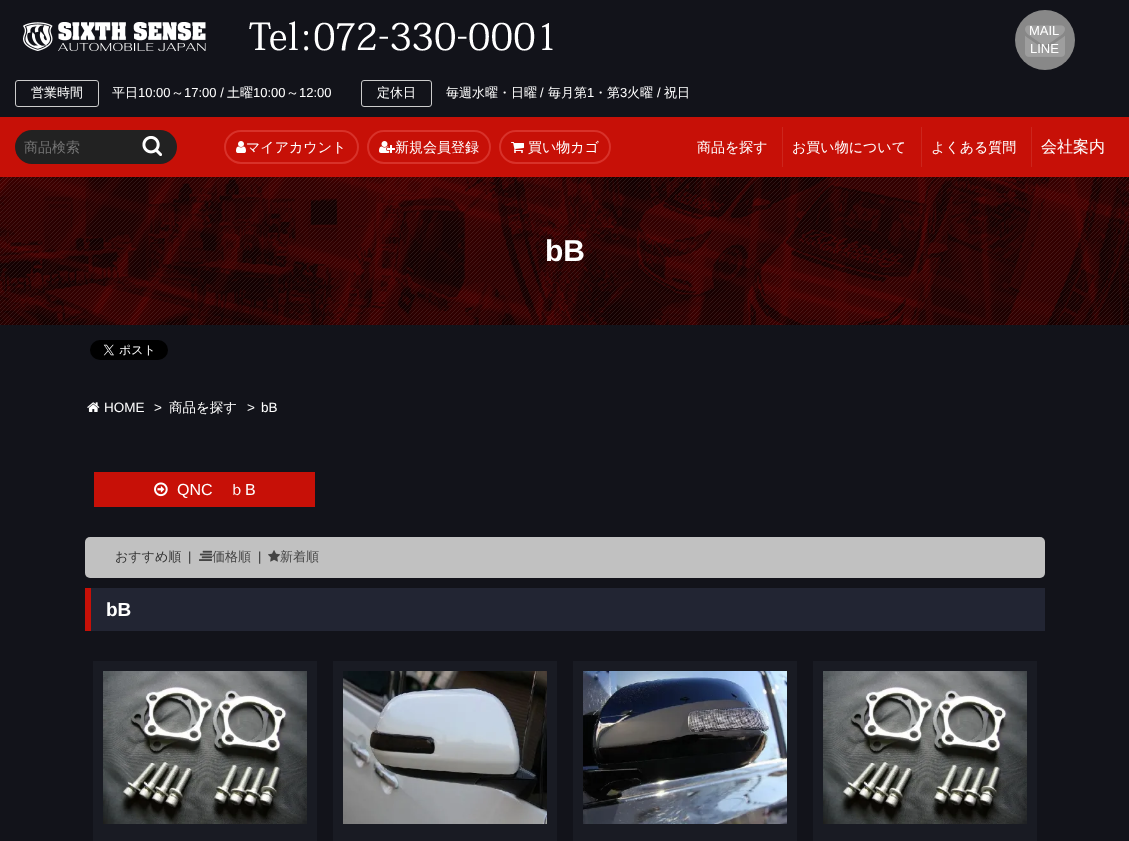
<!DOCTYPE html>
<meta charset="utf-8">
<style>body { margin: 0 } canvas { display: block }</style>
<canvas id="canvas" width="1129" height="841"></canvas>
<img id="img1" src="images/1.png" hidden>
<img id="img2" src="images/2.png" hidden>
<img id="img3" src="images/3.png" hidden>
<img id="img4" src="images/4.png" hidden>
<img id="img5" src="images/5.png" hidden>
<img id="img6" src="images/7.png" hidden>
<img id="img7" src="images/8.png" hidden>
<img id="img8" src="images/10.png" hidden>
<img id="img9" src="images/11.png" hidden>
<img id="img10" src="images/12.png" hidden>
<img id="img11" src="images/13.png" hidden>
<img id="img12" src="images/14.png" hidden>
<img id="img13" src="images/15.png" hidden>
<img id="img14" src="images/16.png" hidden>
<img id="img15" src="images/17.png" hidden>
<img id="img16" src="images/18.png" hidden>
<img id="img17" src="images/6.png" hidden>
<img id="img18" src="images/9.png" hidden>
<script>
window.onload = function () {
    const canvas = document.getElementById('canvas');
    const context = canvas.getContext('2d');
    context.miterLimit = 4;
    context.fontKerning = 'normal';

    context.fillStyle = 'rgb(18, 19, 26)';
    context.fillRect(0, 0, 1129, 841);
    context.drawImage(document.getElementById('img1'), 23, 22, 183, 29);
    context.drawImage(document.getElementById('img2'), 249, 21, 304, 30);
    context.fillStyle = 'rgb(136, 136, 136)';
    context.beginPath();
    context.arc(1045, 40, 30, 0, 2 * Math.PI);
    context.fill();
    context.drawImage(document.getElementById('img3'), 1025, 25, 40, 32);
    context.beginPath();
    context.roundRect(15.5, 80.5, 83, 26, 2.5);
    context.strokeStyle = 'rgb(204, 204, 204)';
    context.stroke();
    context.beginPath();
    context.roundRect(361.5, 80.5, 70, 26, 2.5);
    context.stroke();
    context.fillStyle = 'rgb(199, 16, 7)';
    context.fillRect(0, 117, 1129, 60);
    context.fillStyle = 'rgb(34, 34, 34)';
    context.beginPath();
    context.roundRect(15, 130, 162, 34, 17);
    context.fill();
    context.drawImage(document.getElementById('img4'), 142, 136, 20, 20);
    context.beginPath();
    context.roundRect(225, 131, 133, 32, 16);
    context.strokeStyle = 'rgb(216, 50, 42)';
    context.lineWidth = 2;
    context.stroke();
    context.drawImage(document.getElementById('img5'), 236, 141, 10, 12);
    context.beginPath();
    context.roundRect(368, 131, 122, 32, 16);
    context.stroke();
    context.beginPath();
    context.roundRect(500, 131, 110, 32, 16);
    context.stroke();
    context.drawImage(document.getElementById('img6'), 511, 142, 13, 11);
    context.fillStyle = 'rgb(204, 38, 29)';
    context.fillRect(782, 127, 1, 40);
    context.fillRect(921, 127, 1, 40);
    context.fillRect(1031, 127, 1, 40);
    context.drawImage(document.getElementById('img7'), 0, 177, 1129, 148);
    context.drawImage(document.getElementById('img8'), 90, 340, 78, 20);
    context.drawImage(document.getElementById('img9'), 87, 402, 13, 10);
    context.fillStyle = 'rgb(199, 16, 7)';
    context.fillRect(94, 472, 221, 35);
    context.drawImage(document.getElementById('img10'), 154, 482, 14, 15);
    context.fillStyle = 'rgb(193, 193, 193)';
    context.beginPath();
    context.roundRect(85, 537, 960, 41, 5);
    context.fill();
    context.drawImage(document.getElementById('img11'), 199, 550, 13, 11);
    context.drawImage(document.getElementById('img12'), 268, 550, 12, 12);
    context.fillStyle = 'rgb(34, 37, 51)';
    context.fillRect(91, 588, 954, 43);
    context.fillStyle = 'rgb(199, 16, 7)';
    context.fillRect(85, 588, 6, 43);
    context.fillStyle = 'rgb(25, 27, 35)';
    context.fillRect(93, 661, 224, 180);
    context.drawImage(document.getElementById('img13'), 103, 671, 204, 153);
    context.fillRect(333, 661, 224, 180);
    context.drawImage(document.getElementById('img14'), 343, 671, 204, 153);
    context.fillRect(573, 661, 224, 180);
    context.drawImage(document.getElementById('img15'), 583, 671, 204, 153);
    context.fillRect(813, 661, 224, 180);
    context.drawImage(document.getElementById('img16'), 823, 671, 204, 153);
    context.font = '13px Liberation Sans';
    context.fillStyle = 'rgb(255, 255, 255)';
    context.fillText('MAIL', 1029, 35);
    context.fillText('LINE', 1030, 53);
    context.font = '500 13px WenQuanYi Zen Hei';
    context.fillText('営業時間', 31, 97);
    context.fillText('平日', 112, 97);
    context.font = '13px Liberation Sans';
    context.fillText('10:00', 138, 97);
    context.font = '500 13px WenQuanYi Zen Hei';
    context.fillText('～', 171, 97);
    context.font = '13px Liberation Sans';
    context.fillText('17:00 /', 184, 97);
    context.font = '500 13px WenQuanYi Zen Hei';
    context.fillText('土曜', 227, 97);
    context.font = '13px Liberation Sans';
    context.fillText('10:00', 253, 97);
    context.font = '500 13px WenQuanYi Zen Hei';
    context.fillText('～', 286, 97);
    context.font = '13px Liberation Sans';
    context.fillText('12:00', 299, 97);
    context.font = '500 13px WenQuanYi Zen Hei';
    context.fillText('定休日', 377, 97);
    context.fillText('毎週水曜・日曜', 446, 97);
    context.font = '13px Liberation Sans';
    context.fillText('/', 540, 97);
    context.font = '500 13px WenQuanYi Zen Hei';
    context.fillText('毎月第', 548, 97);
    context.font = '13px Liberation Sans';
    context.fillText('1', 587, 97);
    context.font = '500 13px WenQuanYi Zen Hei';
    context.fillText('・第', 594, 97);
    context.font = '13px Liberation Sans';
    context.fillText('3', 620, 97);
    context.font = '500 13px WenQuanYi Zen Hei';
    context.fillText('火曜', 627, 97);
    context.font = '13px Liberation Sans';
    context.fillText('/', 657, 97);
    context.font = '500 13px WenQuanYi Zen Hei';
    context.fillText('祝日', 664, 97);
    context.font = '500 14px WenQuanYi Zen Hei';
    context.fillStyle = 'rgb(117, 117, 117)';
    context.fillText('商品検索', 24, 152);
    context.fillStyle = 'rgb(255, 255, 255)';
    context.fillText('マイアカウント', 246, 152);
    context.fillText('新規会員登録', 395, 152);
    context.drawImage(document.getElementById('img17'), 379, 141, 16, 12);
    context.fillText('買い物カゴ', 528, 152);
    context.fillText('商品を探す', 697, 152);
    context.fillText('お買い物について', 792, 152);
    context.fillText('よくある質問', 931, 152);
    context.font = '500 16px WenQuanYi Zen Hei';
    context.fillText('会社案内', 1041, 152);
    context.font = 'bold 30px Liberation Sans';
    context.fillText('bB', 545, 261);
    context.drawImage(document.getElementById('img18'), 0, 177, 1129, 148);
    context.font = '13.5px Liberation Sans';
    context.fillText('HOME', 104, 412);
    context.fillText('>', 154, 412);
    context.font = '500 13.5px WenQuanYi Zen Hei';
    context.fillText('商品を探す', 169, 412);
    context.font = '13.5px Liberation Sans';
    context.fillText('>', 247, 412);
    context.fillText('bB', 261, 412);
    context.font = '16px Liberation Sans';
    context.fillText('QNC', 177, 495);
    context.font = '500 16px WenQuanYi Zen Hei';
    context.fillText('ｂ', 229, 495);
    context.font = '16px Liberation Sans';
    context.fillText('B', 245, 495);
    context.font = '500 13px WenQuanYi Zen Hei';
    context.fillStyle = 'rgb(51, 51, 51)';
    context.fillText('おすすめ順', 115, 561);
    context.font = '13px Liberation Sans';
    context.fillText('|', 188, 561);
    context.font = '500 13px WenQuanYi Zen Hei';
    context.fillStyle = 'rgb(68, 68, 68)';
    context.fillText('価格順', 212, 561);
    context.font = '13px Liberation Sans';
    context.fillStyle = 'rgb(51, 51, 51)';
    context.fillText('|', 258, 561);
    context.font = '500 13px WenQuanYi Zen Hei';
    context.fillStyle = 'rgb(68, 68, 68)';
    context.fillText('新着順', 280, 561);
    context.font = 'bold 19px Liberation Sans';
    context.fillStyle = 'rgb(255, 255, 255)';
    context.fillText('bB', 106, 616);
};
</script>
